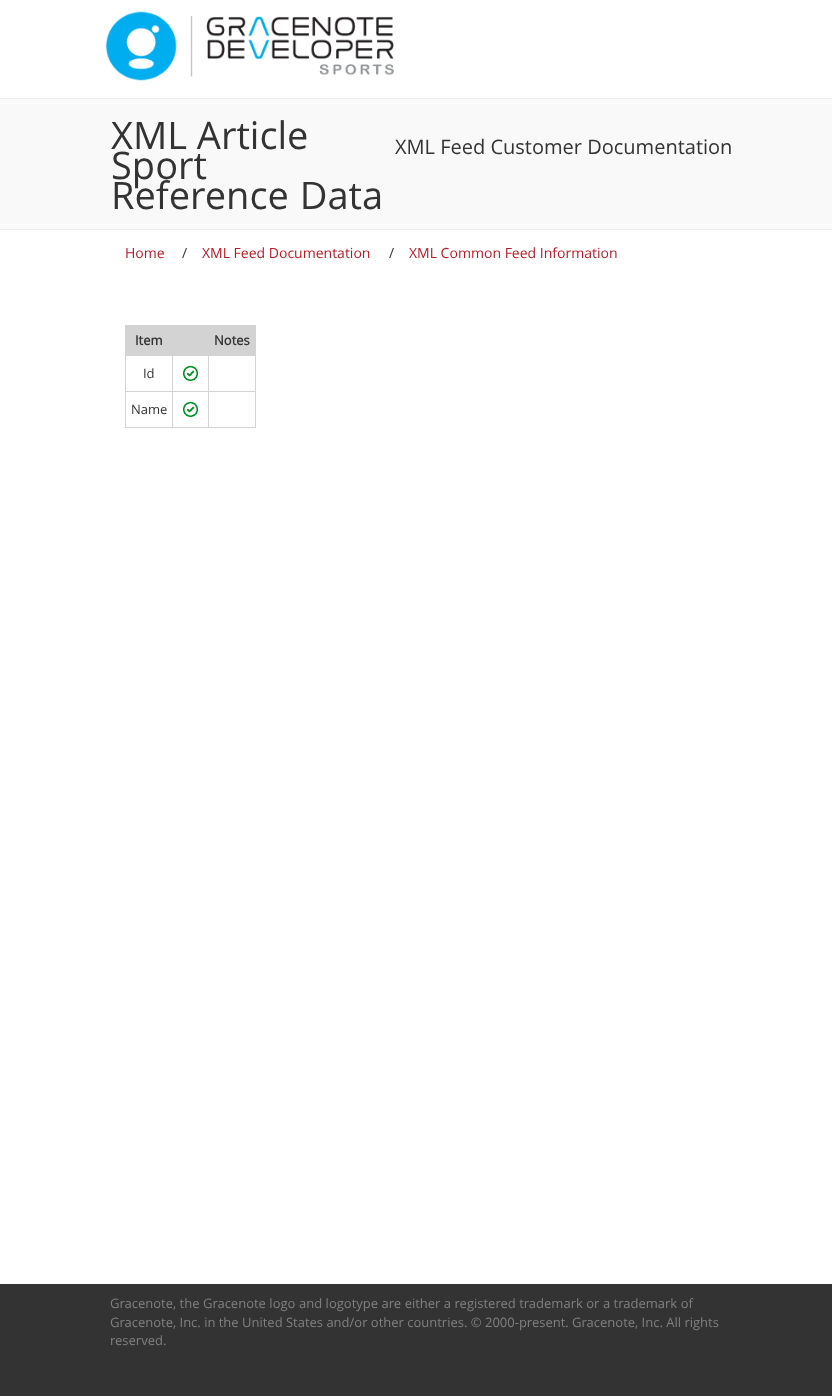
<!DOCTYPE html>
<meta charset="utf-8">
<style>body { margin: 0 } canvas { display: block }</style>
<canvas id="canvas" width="832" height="1396"></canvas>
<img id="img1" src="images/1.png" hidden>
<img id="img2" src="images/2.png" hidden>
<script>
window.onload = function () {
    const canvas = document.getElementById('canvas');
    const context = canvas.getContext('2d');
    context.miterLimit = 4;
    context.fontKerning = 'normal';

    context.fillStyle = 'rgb(255, 255, 255)';
    context.fillRect(0, 0, 832, 1396);
    context.fillStyle = 'rgb(249, 249, 249)';
    context.fillRect(0, 99, 832, 130);
    context.fillStyle = 'rgb(238, 238, 238)';
    context.fillRect(0, 98, 832, 1);
    context.fillRect(0, 229, 832, 1);
    context.drawImage(document.getElementById('img1'), 105, 11, 289, 70);
    context.fillStyle = 'rgb(211, 211, 211)';
    context.fillRect(125, 326, 130, 30);
    context.fillRect(125, 325, 131, 1);
    context.fillRect(208, 391, 48, 1);
    context.fillRect(255, 391, 1, 37);
    context.fillRect(255, 355, 1, 37);
    context.fillRect(255, 325, 1, 31);
    context.fillRect(208, 427, 48, 1);
    context.fillRect(208, 391, 1, 37);
    context.fillRect(172, 391, 37, 1);
    context.fillRect(172, 427, 37, 1);
    context.fillRect(172, 391, 1, 37);
    context.fillRect(125, 391, 48, 1);
    context.fillRect(172, 355, 1, 37);
    context.drawImage(document.getElementById('img2'), 182, 365, 17, 16);
    context.fillRect(208, 355, 1, 37);
    context.fillRect(125, 427, 48, 1);
    context.fillRect(125, 355, 1, 73);
    context.drawImage(document.getElementById('img2'), 182, 401, 17, 16);
    context.fillStyle = 'rgb(51, 51, 51)';
    context.fillRect(0, 1284, 832, 112);
    context.font = '38px Open Sans';
    context.fillText('XML Article', 111, 149);
    context.fillText('Sport', 111, 179);
    context.wordSpacing = '1px';
    context.fillText('Reference Data', 111, 209);
    context.wordSpacing = '0px';
    context.font = '20px Open Sans';
    context.fillText('XML Feed Customer Documentation', 395, 154);
    context.font = '14px Open Sans';
    context.fillStyle = 'rgb(186, 27, 35)';
    context.fillText('Home', 125, 258);
    context.fillStyle = 'rgb(51, 51, 51)';
    context.fillText('/', 182, 258);
    context.fillStyle = 'rgb(186, 27, 35)';
    context.fillText('XML Feed Documentation', 202, 258);
    context.fillStyle = 'rgb(51, 51, 51)';
    context.fillText('/', 389, 258);
    context.fillStyle = 'rgb(186, 27, 35)';
    context.fillText('XML Common Feed Information', 409, 258);
    context.font = 'bold 13px Open Sans';
    context.fillStyle = 'rgb(51, 51, 51)';
    context.fillText('Item', 135, 345);
    context.fillText('Notes', 214, 345);
    context.font = '13px Open Sans';
    context.fillText('Id', 143, 378);
    context.fillText('Name', 131, 414);
    context.wordSpacing = '0.1px';
    context.fillStyle = 'rgb(128, 128, 128)';
    context.fillText('Gracenote, the Gracenote logo and logotype are either a registered trademark or a trademark of', 110, 1308);
    context.wordSpacing = '0px';
    context.fillText('Gracenote, Inc. in the United States and/or other countries. © 2000-present. Gracenote, Inc. All rights', 110, 1327);
    context.fillText('reserved.', 110, 1345);
};
</script>
